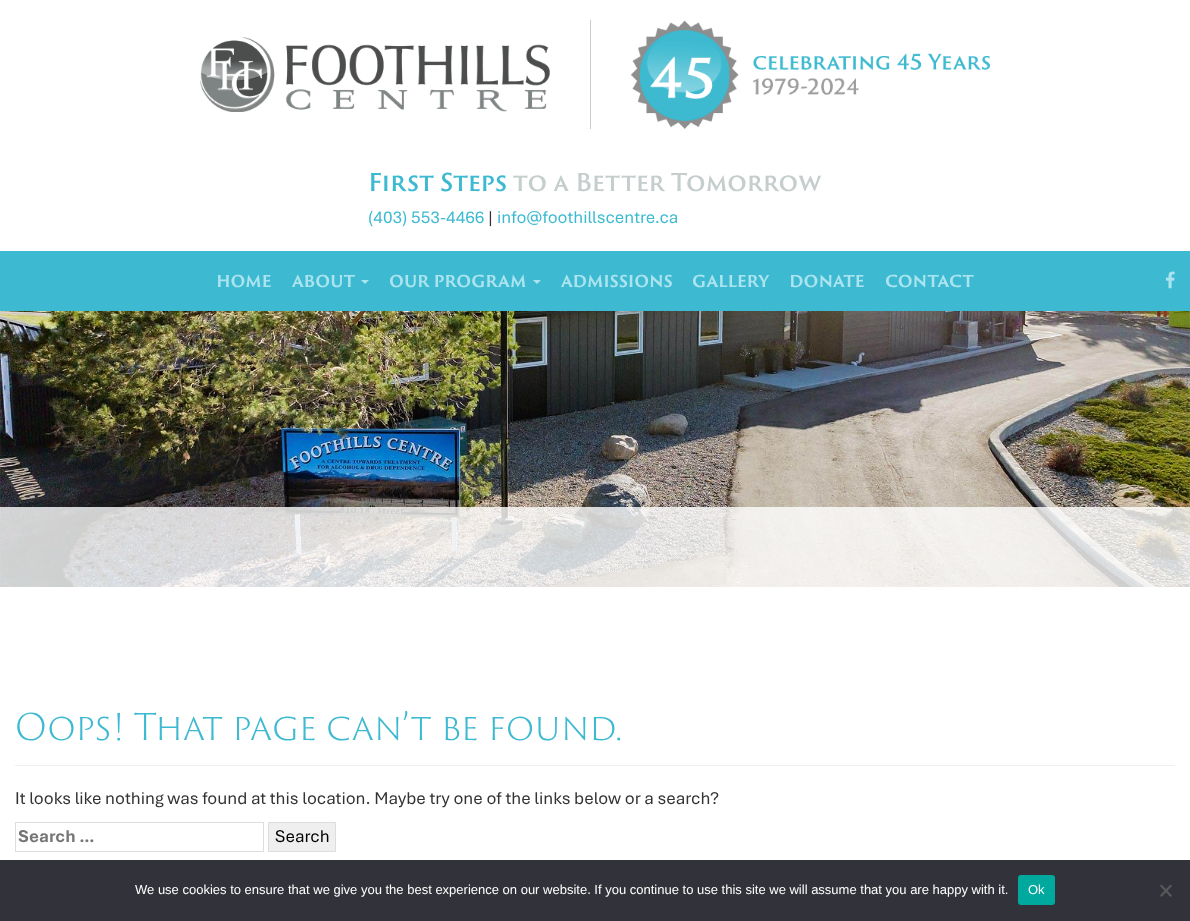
<!DOCTYPE html>
<meta charset="utf-8">
<style>body { margin: 0 } canvas { display: block }</style>
<canvas id="canvas" width="1190" height="921"></canvas>
<img id="img1" src="images/1.png" hidden>
<img id="img2" src="images/2.png" hidden>
<img id="img3" src="images/3.png" hidden>
<img id="img4" src="images/4.png" hidden>
<script>
window.onload = function () {
    const canvas = document.getElementById('canvas');
    const context = canvas.getContext('2d');
    context.miterLimit = 4;
    context.fontKerning = 'normal';

    context.fillStyle = 'rgb(255, 255, 255)';
    context.fillRect(0, 0, 1190, 921);
    context.drawImage(document.getElementById('img1'), 200, 37, 350, 75);
    context.fillStyle = 'rgb(197, 205, 205)';
    context.fillRect(590, 20, 1, 109);
    context.drawImage(document.getElementById('img2'), 631, 20, 359, 109);
    context.fillStyle = 'rgb(61, 186, 209)';
    context.fillRect(0, 251, 1190, 60);
    context.fillStyle = 'rgb(171, 228, 239)';
    context.beginPath();
    context.moveTo(361, 280);
    context.lineTo(369, 280);
    context.lineTo(365, 284);
    context.closePath();
    context.fill();
    context.beginPath();
    context.moveTo(533, 280);
    context.lineTo(541, 280);
    context.lineTo(537, 284);
    context.closePath();
    context.fill();
    context.drawImage(document.getElementById('img3'), 1165, 271, 10, 18);
    context.drawImage(document.getElementById('img4'), 0, 311, 1190, 276);
    context.fillStyle = 'rgba(255, 255, 255, 0.8)';
    context.fillRect(0, 507, 1190, 80);
    context.fillStyle = 'rgb(238, 238, 238)';
    context.fillRect(15, 765, 1160, 1);
    context.strokeStyle = 'rgb(221, 221, 221)';
    context.strokeRect(15.5, 822.5, 248, 29);
    context.fillStyle = 'rgb(239, 239, 239)';
    context.beginPath();
    context.rect(268.5, 822.5, 67, 29);
    context.fill();
    context.stroke();
    context.fillStyle = 'rgb(50, 50, 58)';
    context.fillRect(0, 860, 1190, 61);
    context.fillStyle = 'rgb(0, 169, 157)';
    context.beginPath();
    context.roundRect(1018, 875, 37, 30, 3);
    context.fill();
    context.fillStyle = 'rgb(89, 89, 93)';
    context.beginPath();
    context.moveTo(1170.5, 884.5);
    context.lineTo(1172, 886);
    context.lineTo(1161.5, 897);
    context.lineTo(1160, 895.5);
    context.closePath();
    context.fill();
    context.beginPath();
    context.moveTo(1160, 886);
    context.lineTo(1161.5, 884.5);
    context.lineTo(1172, 895.5);
    context.lineTo(1170.5, 897);
    context.closePath();
    context.fill();
    context.font = '600 24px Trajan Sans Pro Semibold';
    context.fillStyle = 'rgb(61, 186, 209)';
    context.fillText('First Steps', 368, 191);
    context.fillStyle = 'rgb(197, 205, 205)';
    context.fillText('to a Better Tomorrow', 513, 191);
    context.font = '18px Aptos';
    context.fillStyle = 'rgb(61, 186, 209)';
    context.fillText('(403) 553-4466', 368, 223);
    context.fillStyle = 'rgb(51, 51, 51)';
    context.fillText('|', 488, 223);
    context.fillStyle = 'rgb(61, 186, 209)';
    context.fillText('info@foothillscentre.ca', 497, 223);
    context.font = 'bold 16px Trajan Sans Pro';
    context.fillStyle = 'rgb(171, 228, 239)';
    context.fillText('HOME', 216, 287);
    context.fillText('ABOUT', 292, 287);
    context.fillText('OUR PROGRAM', 389, 287);
    context.fillText('ADMISSIONS', 561, 287);
    context.fillText('GALLERY', 692, 287);
    context.fillText('DONATE', 789, 287);
    context.fillText('CONTACT', 885, 287);
    context.font = '300 36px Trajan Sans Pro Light';
    context.fillStyle = 'rgb(61, 186, 209)';
    context.fillText('Oops! That page can’t be found.', 15, 740);
    context.font = '18px Aptos';
    context.fillStyle = 'rgb(51, 51, 51)';
    context.fillText('It looks like nothing was found at this location. Maybe try one of the links below or a search?', 15, 804);
    context.font = 'bold 18px Aptos';
    context.fillStyle = 'rgb(117, 117, 117)';
    context.fillText('Search …', 18, 842);
    context.font = '18px Aptos';
    context.fillStyle = 'rgb(0, 0, 0)';
    context.fillText('Search', 275, 842);
    context.font = '13px Liberation Sans';
    context.fillStyle = 'rgb(255, 255, 255)';
    context.fillText('We use cookies to ensure that we give you the best experience on our website. If you continue to use this site we will assume that you are happy with it.', 135, 894);
    context.fillText('Ok', 1028, 894);
};
</script>
